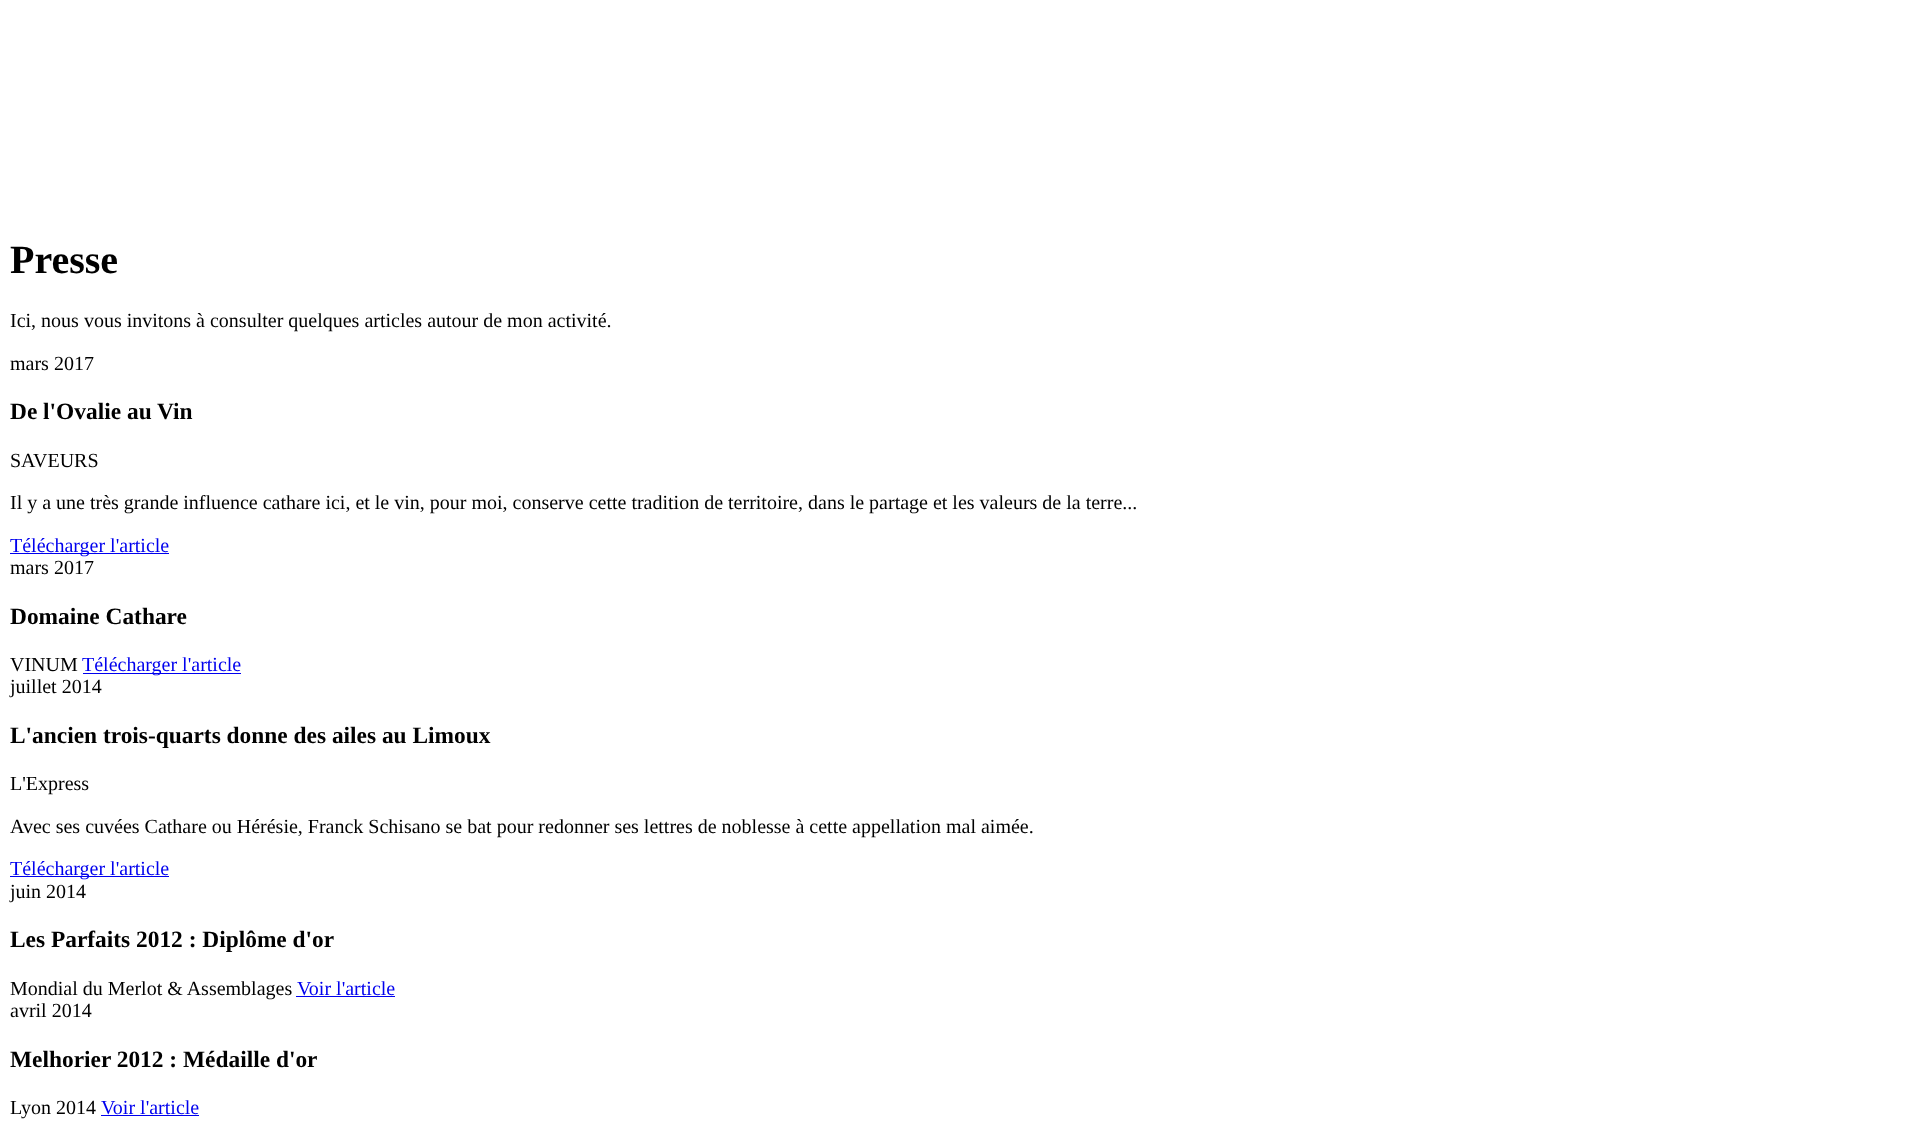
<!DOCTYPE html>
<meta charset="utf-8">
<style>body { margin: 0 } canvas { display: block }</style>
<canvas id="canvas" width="1929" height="1126"></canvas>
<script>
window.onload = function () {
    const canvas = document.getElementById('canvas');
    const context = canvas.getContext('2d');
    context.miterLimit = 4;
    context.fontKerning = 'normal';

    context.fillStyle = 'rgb(255, 255, 255)';
    context.fillRect(0, 0, 1929, 1126);
    context.fillStyle = 'rgb(0, 0, 238)';
    context.fillRect(10, 553, 159, 1);
    context.fillRect(83, 673, 158, 1);
    context.fillRect(10, 876, 159, 1);
    context.fillRect(296, 996, 99, 1);
    context.fillRect(101, 1115, 98, 1);
    context.font = 'bold 40px Liberation Serif';
    context.fillStyle = 'rgb(0, 0, 0)';
    context.fillText('Presse', 10, 273);
    context.font = '20px Liberation Serif';
    context.fillText('Ici, nous vous invitons à consulter quelques articles autour de mon activité.', 10, 327);
    context.fillText('mars 2017', 10, 370);
    context.font = 'bold 23.4px Liberation Serif';
    context.fillText('De l\'Ovalie au Vin', 10, 419);
    context.font = '20px Liberation Serif';
    context.fillText('SAVEURS', 10, 467);
    context.fillText('Il y a une très grande influence cathare ici, et le vin, pour moi, conserve cette tradition de territoire, dans le partage et les valeurs de la terre...', 10, 509);
    context.fillStyle = 'rgb(0, 0, 238)';
    context.fillText('Télécharger l\'article', 10, 552);
    context.fillStyle = 'rgb(0, 0, 0)';
    context.fillText('mars 2017', 10, 574);
    context.font = 'bold 23.4px Liberation Serif';
    context.fillText('Domaine Cathare', 10, 624);
    context.font = '20px Liberation Serif';
    context.fillText('VINUM', 10, 671);
    context.fillStyle = 'rgb(0, 0, 238)';
    context.fillText('Télécharger l\'article', 82, 671);
    context.fillStyle = 'rgb(0, 0, 0)';
    context.fillText('juillet 2014', 10, 693);
    context.font = 'bold 23.4px Liberation Serif';
    context.fillText('L\'ancien trois-quarts donne des ailes au Limoux', 10, 743);
    context.font = '20px Liberation Serif';
    context.fillText('L\'Express', 10, 790);
    context.fillText('Avec ses cuvées Cathare ou Hérésie, Franck Schisano se bat pour redonner ses lettres de noblesse à cette appellation mal aimée.', 10, 833);
    context.fillStyle = 'rgb(0, 0, 238)';
    context.fillText('Télécharger l\'article', 10, 875);
    context.fillStyle = 'rgb(0, 0, 0)';
    context.fillText('juin 2014', 10, 898);
    context.font = 'bold 23.4px Liberation Serif';
    context.fillText('Les Parfaits 2012 : Diplôme d\'or', 10, 947);
    context.font = '20px Liberation Serif';
    context.fillText('Mondial du Merlot & Assemblages', 10, 995);
    context.fillStyle = 'rgb(0, 0, 238)';
    context.fillText('Voir l\'article', 297, 995);
    context.fillStyle = 'rgb(0, 0, 0)';
    context.fillText('avril 2014', 10, 1017);
    context.font = 'bold 23.4px Liberation Serif';
    context.fillText('Melhorier 2012 : Médaille d\'or', 10, 1067);
    context.font = '20px Liberation Serif';
    context.fillText('Lyon 2014', 10, 1114);
    context.fillStyle = 'rgb(0, 0, 238)';
    context.fillText('Voir l\'article', 101, 1114);
};
</script>
